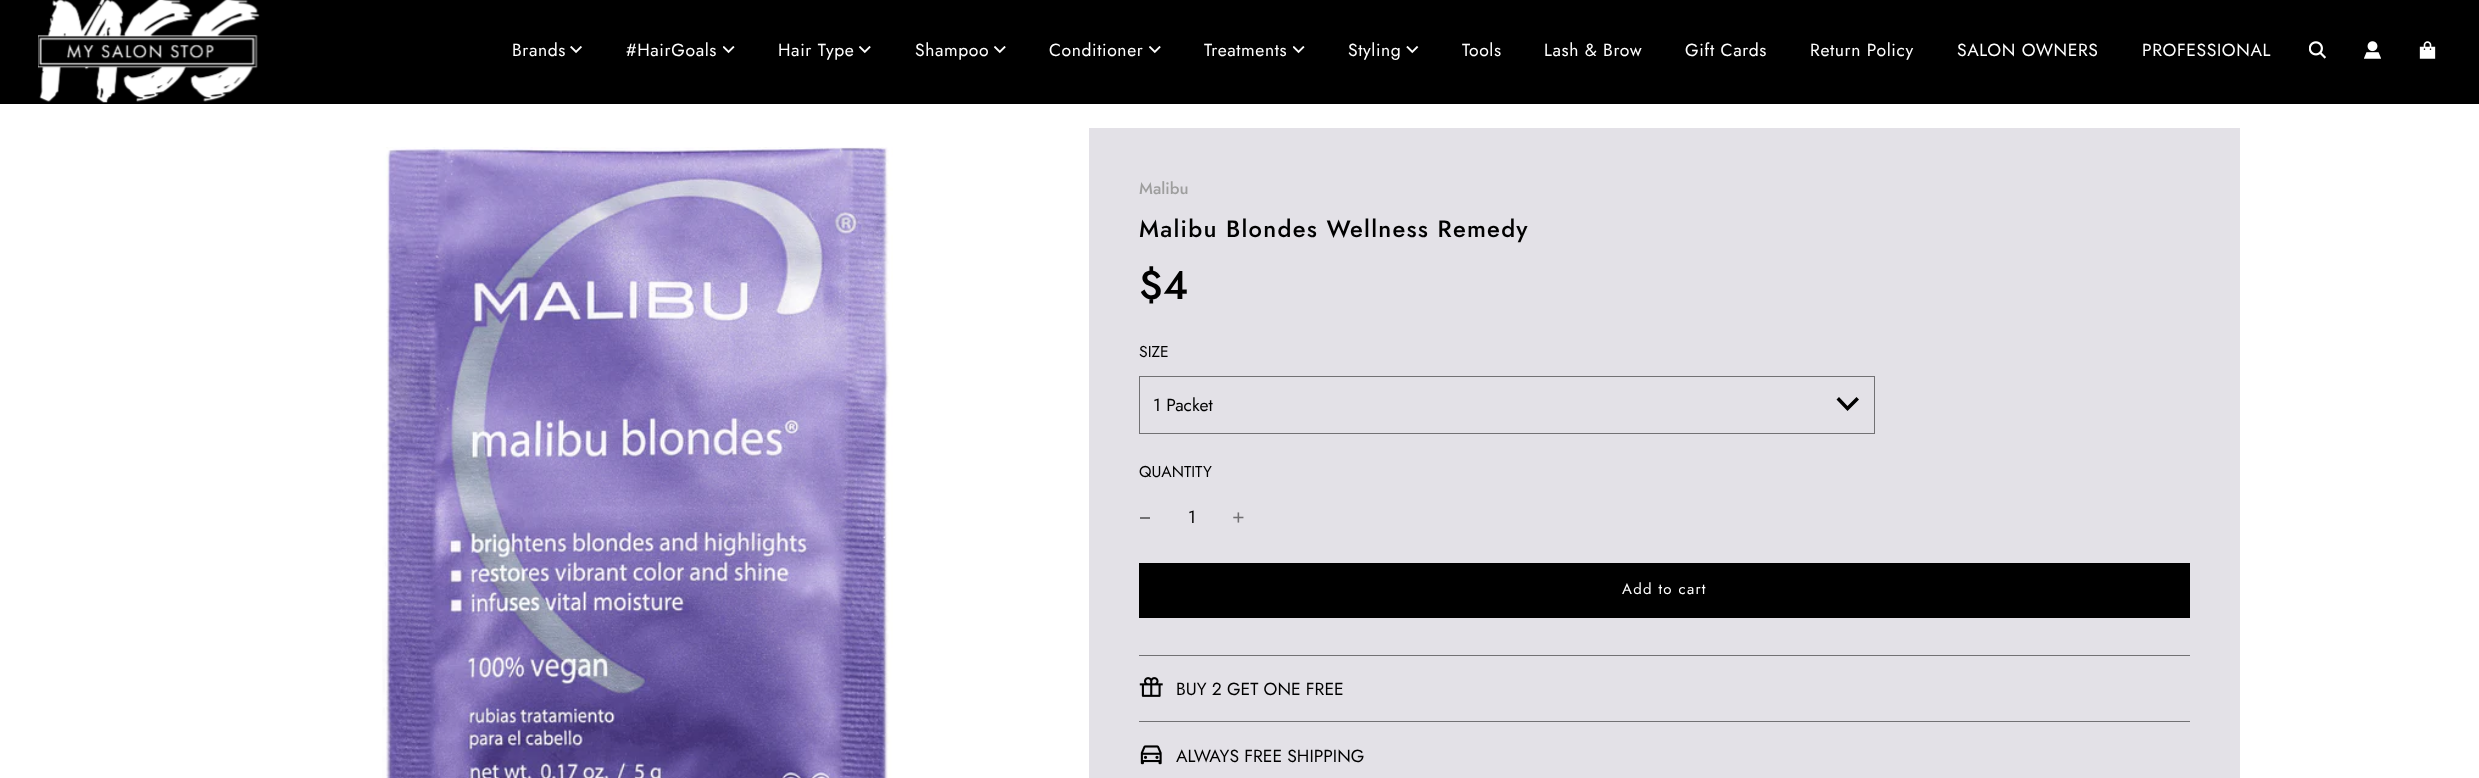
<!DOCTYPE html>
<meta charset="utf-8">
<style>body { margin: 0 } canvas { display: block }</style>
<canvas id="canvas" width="2479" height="778"></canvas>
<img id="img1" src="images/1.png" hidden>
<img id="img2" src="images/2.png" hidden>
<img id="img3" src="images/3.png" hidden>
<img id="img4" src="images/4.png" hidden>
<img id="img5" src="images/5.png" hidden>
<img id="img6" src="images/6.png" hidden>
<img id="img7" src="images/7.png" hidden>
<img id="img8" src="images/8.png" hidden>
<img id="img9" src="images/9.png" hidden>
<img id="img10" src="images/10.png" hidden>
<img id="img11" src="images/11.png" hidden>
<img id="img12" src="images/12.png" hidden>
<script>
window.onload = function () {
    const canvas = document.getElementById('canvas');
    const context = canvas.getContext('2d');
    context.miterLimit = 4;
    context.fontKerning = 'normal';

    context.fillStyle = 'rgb(255, 255, 255)';
    context.fillRect(0, 0, 2479, 778);
    context.fillStyle = 'rgb(0, 0, 0)';
    context.fillRect(0, 0, 2479, 104);
    context.drawImage(document.getElementById('img1'), 38, 0, 222, 103);
    context.drawImage(document.getElementById('img2'), 570, 46, 12, 8);
    context.drawImage(document.getElementById('img3'), 723, 46, 12, 8);
    context.drawImage(document.getElementById('img4'), 859, 46, 12, 8);
    context.drawImage(document.getElementById('img4'), 994, 46, 12, 8);
    context.drawImage(document.getElementById('img4'), 1149, 46, 12, 8);
    context.drawImage(document.getElementById('img3'), 1293, 46, 12, 8);
    context.drawImage(document.getElementById('img5'), 1406, 46, 13, 8);
    context.drawImage(document.getElementById('img6'), 2309, 41, 17, 18);
    context.drawImage(document.getElementById('img7'), 2364, 41, 17, 18);
    context.drawImage(document.getElementById('img8'), 2419, 41, 17, 18);
    context.drawImage(document.getElementById('img9'), 382, 147, 511, 631);
    context.fillStyle = 'rgb(227, 225, 231)';
    context.fillRect(1089, 128, 1151, 650);
    context.strokeStyle = 'rgb(114, 113, 116)';
    context.strokeRect(1139.5, 376.5, 735, 57);
    context.fillStyle = 'rgb(0, 0, 0)';
    context.beginPath();
    context.moveTo(1847.5, 411);
    context.lineTo(1859, 399.5);
    context.lineTo(1856.5, 397);
    context.lineTo(1847.5, 406);
    context.lineTo(1839, 397);
    context.lineTo(1836.5, 399.5);
    context.closePath();
    context.fill();
    context.fillStyle = 'rgb(114, 113, 116)';
    context.fillRect(1140, 517, 10, 2);
    context.drawImage(document.getElementById('img10'), 1233, 512, 11, 11);
    context.fillStyle = 'rgb(0, 0, 0)';
    context.fillRect(1139, 563, 1051, 55);
    context.fillStyle = 'rgb(114, 113, 116)';
    context.fillRect(1139, 655, 1051, 1);
    context.fillRect(1139, 721, 1051, 1);
    context.drawImage(document.getElementById('img11'), 1139, 677, 24, 20);
    context.drawImage(document.getElementById('img12'), 1140, 745, 22, 20);
    context.letterSpacing = '0.6px';
    context.font = '17.5px Jost';
    context.fillStyle = 'rgb(255, 255, 255)';
    context.fillText('Brands', 512, 56);
    context.fillText('#HairGoals', 626, 56);
    context.fillText('Hair Type', 778, 56);
    context.fillText('Shampoo', 915, 56);
    context.fillText('Conditioner', 1049, 56);
    context.fillText('Treatments', 1204, 56);
    context.fillText('Styling', 1348, 56);
    context.fillText('Tools', 1462, 56);
    context.fillText('Lash & Brow', 1544, 56);
    context.fillText('Gift Cards', 1685, 56);
    context.fillText('Return Policy', 1810, 56);
    context.fillText('SALON OWNERS', 1957, 56);
    context.fillText('PROFESSIONAL', 2142, 56);
    context.letterSpacing = '0px';
    context.font = '500 16.5px Jost';
    context.fillStyle = 'rgb(158, 158, 158)';
    context.fillText('Malibu', 1139, 194);
    context.letterSpacing = '1.25px';
    context.font = '500 23.75px Jost';
    context.fillStyle = 'rgb(0, 0, 0)';
    context.fillText('Malibu Blondes Wellness Remedy', 1139, 237);
    context.letterSpacing = '0px';
    context.font = '500 40px Jost';
    context.fillText('$4', 1139, 299);
    context.font = '15.75px Jost';
    context.fillText('SIZE', 1139, 357);
    context.font = '17.5px Jost';
    context.fillText('1 Packet', 1153, 411);
    context.font = '15.75px Jost';
    context.fillText('QUANTITY', 1139, 477);
    context.font = '17.5px Jost';
    context.fillText('1', 1188, 523);
    context.letterSpacing = '1.25px';
    context.font = '15px Jost';
    context.fillStyle = 'rgb(255, 255, 255)';
    context.fillText('Add to cart', 1622, 594);
    context.letterSpacing = '0px';
    context.font = '17.5px Jost';
    context.fillStyle = 'rgb(0, 0, 0)';
    context.fillText('BUY 2 GET ONE FREE', 1176, 695);
    context.fillText('ALWAYS FREE SHIPPING', 1176, 762);
};
</script>
